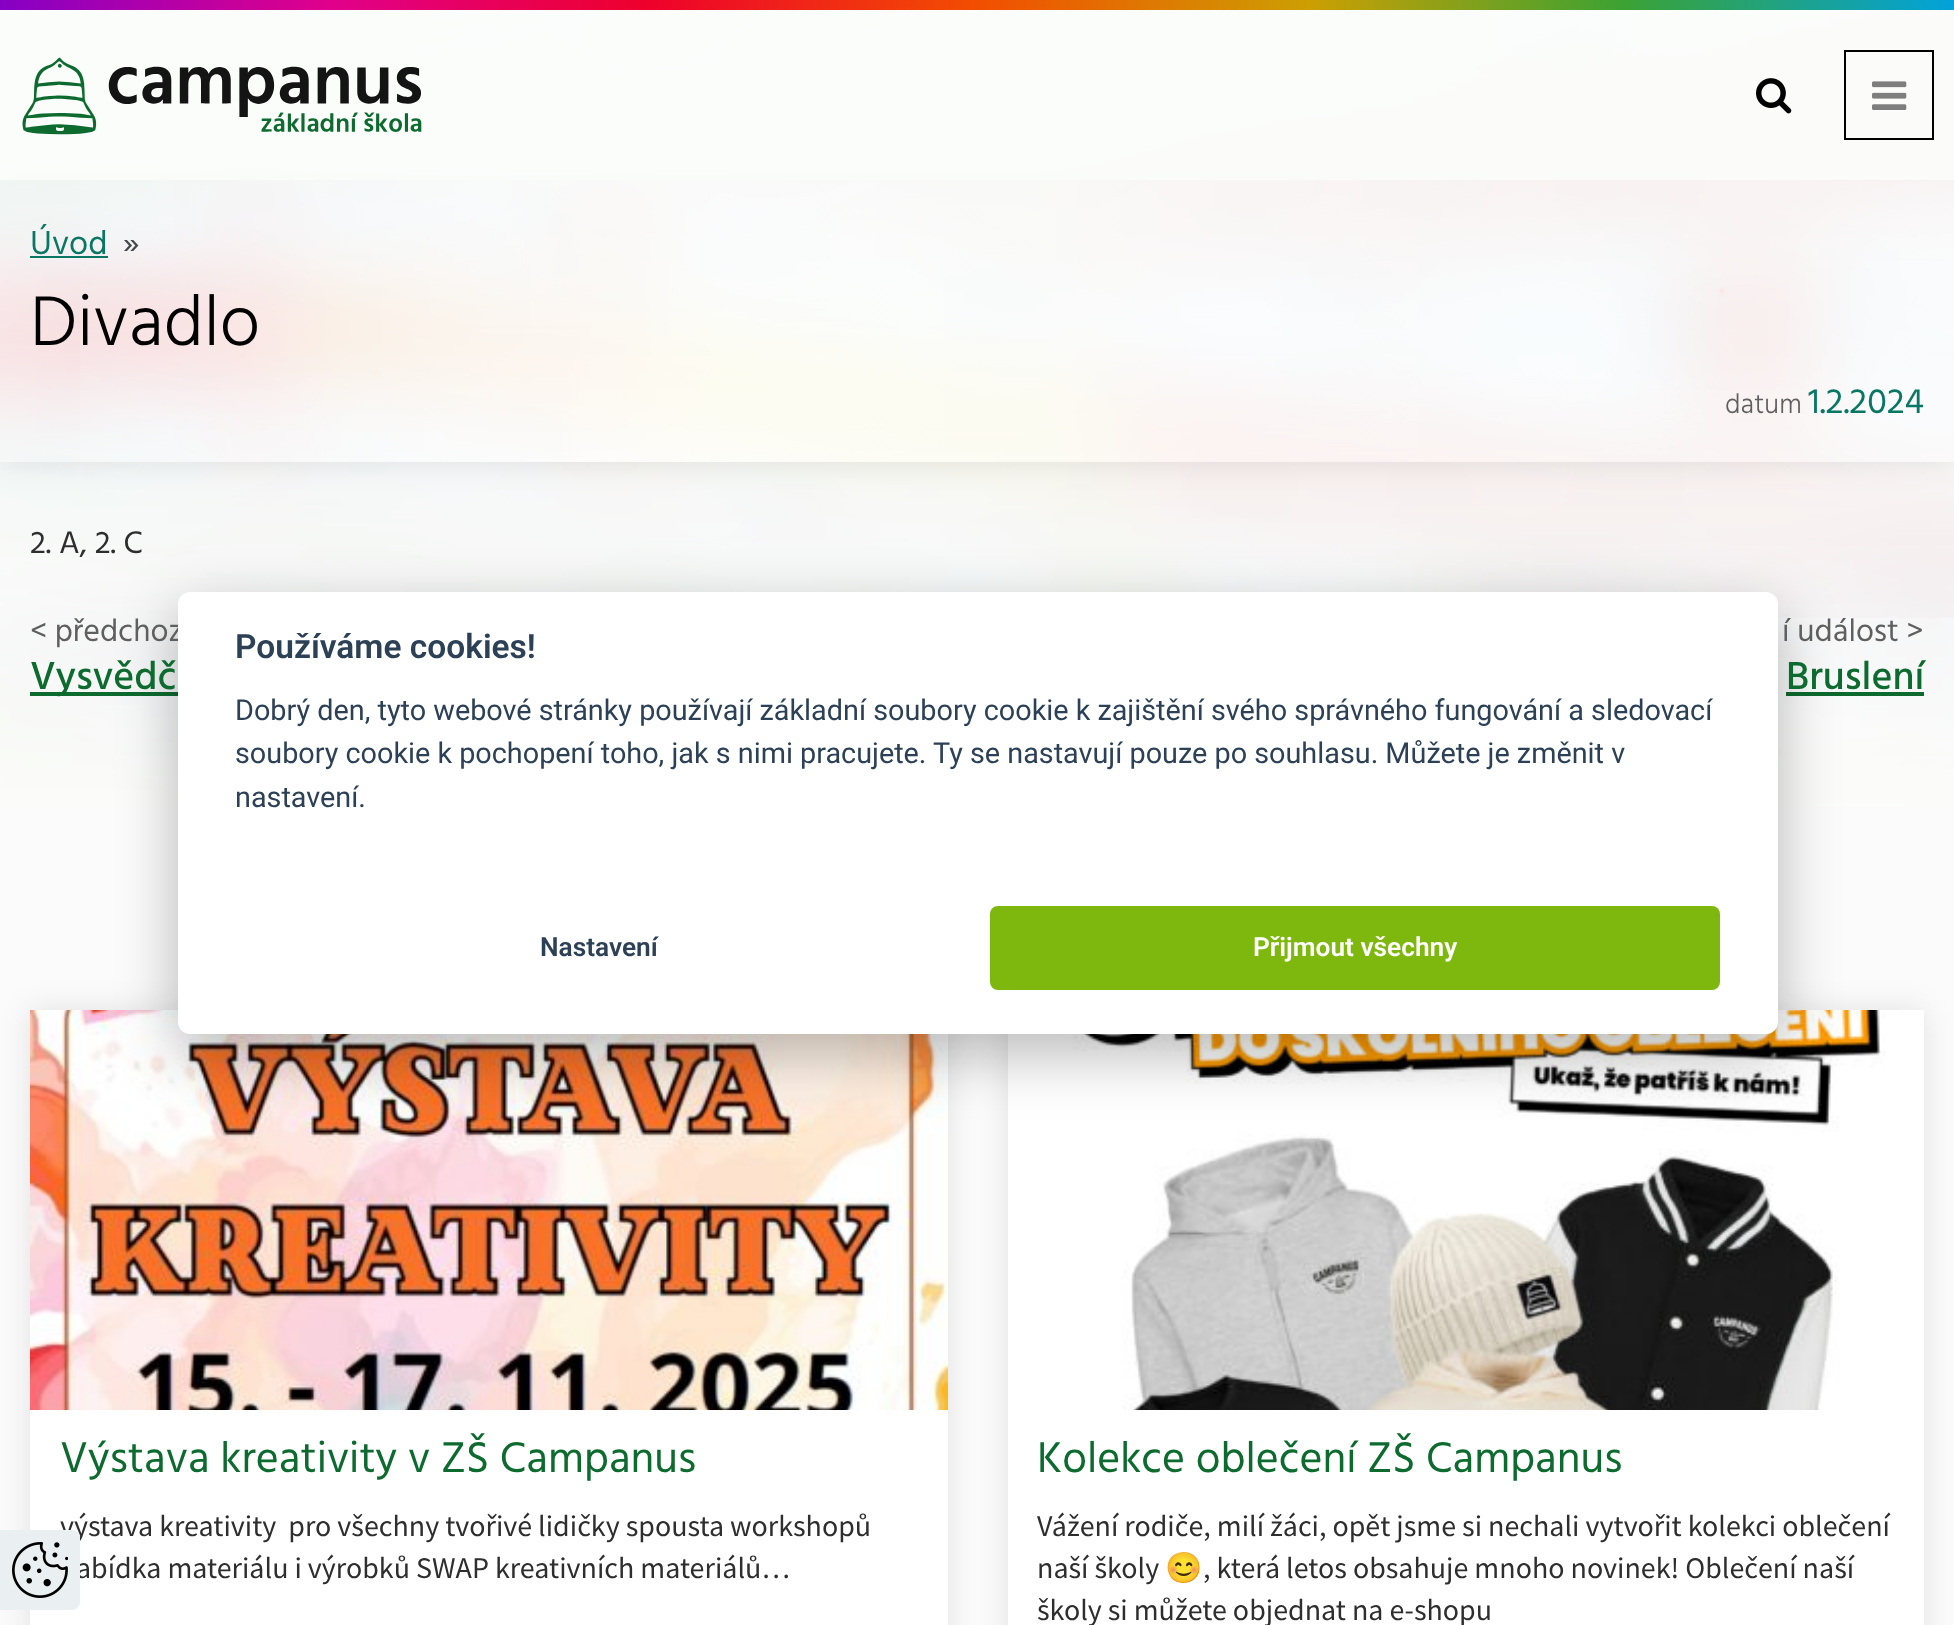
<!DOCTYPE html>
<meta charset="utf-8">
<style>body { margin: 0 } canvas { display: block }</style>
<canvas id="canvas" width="1954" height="1625"></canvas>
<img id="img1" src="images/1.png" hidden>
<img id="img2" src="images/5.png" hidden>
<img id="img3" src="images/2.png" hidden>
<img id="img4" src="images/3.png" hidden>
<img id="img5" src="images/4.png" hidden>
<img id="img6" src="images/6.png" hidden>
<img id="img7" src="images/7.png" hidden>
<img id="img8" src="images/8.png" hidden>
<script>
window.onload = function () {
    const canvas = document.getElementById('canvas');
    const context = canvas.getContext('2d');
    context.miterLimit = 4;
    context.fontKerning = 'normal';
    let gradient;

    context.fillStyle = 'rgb(255, 255, 255)';
    context.fillRect(0, 0, 1954, 1625);
    context.drawImage(document.getElementById('img1'), 0, 10, 1954, 796);
    gradient = context.createLinearGradient(0, 5, 1954, 5);
    gradient.addColorStop(0, 'rgb(134, 0, 196)');
    gradient.addColorStop(0.17, 'rgb(225, 0, 139)');
    gradient.addColorStop(0.33, 'rgb(238, 0, 44)');
    gradient.addColorStop(0.5, 'rgb(242, 78, 1)');
    gradient.addColorStop(0.67, 'rgb(204, 159, 3)');
    gradient.addColorStop(0.83, 'rgb(60, 162, 51)');
    gradient.addColorStop(1, 'rgb(2, 162, 219)');
    context.fillStyle = gradient;
    context.fillRect(0, 0, 1954, 10);
    context.save();
    context.beginPath();
    context.moveTo(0, 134);
    context.lineTo(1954, 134);
    context.lineTo(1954, 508);
    context.lineTo(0, 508);
    context.closePath();
    context.moveTo(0, 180);
    context.lineTo(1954, 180);
    context.lineTo(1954, 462);
    context.lineTo(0, 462);
    context.closePath();
    context.clip('evenodd');
    context.fillStyle = 'rgba(0, 0, 0, 0.1)';
    context.filter = 'blur(15px)';
    context.beginPath();
    context.rect(0, 180, 1954, 282);
    context.fill();
    context.filter = 'none';
    context.restore();
    gradient = context.createLinearGradient(0, 321, 1954, 321);
    gradient.addColorStop(0, 'rgba(255, 255, 255, 0)');
    gradient.addColorStop(0.31, 'rgb(255, 255, 255)');
    gradient.addColorStop(1, 'rgba(255, 255, 255, 0.5)');
    context.fillStyle = gradient;
    context.fillRect(80, 180, 1874, 282);
    context.drawImage(document.getElementById('img2'), 0, 10, 1954, 608);
    context.fillStyle = 'rgba(251, 253, 251, 0.95)';
    context.fillRect(0, 10, 1954, 170);
    context.drawImage(document.getElementById('img3'), 22, 57, 400, 78);
    context.drawImage(document.getElementById('img4'), 1756, 78, 36, 36);
    context.strokeStyle = 'rgb(0, 0, 0)';
    context.lineWidth = 2;
    context.strokeRect(1845, 51, 88, 88);
    context.drawImage(document.getElementById('img5'), 1872, 81, 35, 29);
    context.fillStyle = 'rgb(8, 119, 99)';
    context.fillRect(30, 256, 78, 2);
    context.fillStyle = 'rgb(13, 107, 47)';
    context.fillRect(30, 692, 148, 4);
    context.fillRect(1786, 692, 138, 4);
    context.fillStyle = 'rgb(251, 251, 251)';
    context.fillRect(0, 806, 1954, 819);
    context.fillStyle = 'rgba(0, 0, 0, 0.1)';
    context.filter = 'blur(15px)';
    context.beginPath();
    context.rect(30, 1010, 918, 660);
    context.fill();
    context.filter = 'none';
    context.fillStyle = 'rgb(255, 255, 255)';
    context.fillRect(30, 1410, 918, 215);
    context.drawImage(document.getElementById('img6'), 30, 1010, 918, 400);
    context.fillStyle = 'rgba(0, 0, 0, 0.1)';
    context.filter = 'blur(15px)';
    context.beginPath();
    context.rect(1008, 1010, 916, 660);
    context.fill();
    context.filter = 'none';
    context.fillStyle = 'rgb(255, 255, 255)';
    context.fillRect(1008, 1010, 916, 615);
    context.drawImage(document.getElementById('img7'), 1057, 1010, 828, 400);
    context.fillStyle = 'rgba(2, 2, 3, 0.28)';
    context.filter = 'blur(30px)';
    context.beginPath();
    context.roundRect(178, 612, 1600, 442, 12);
    context.fill();
    context.filter = 'none';
    context.font = '34px Hind';
    context.fillStyle = 'rgb(8, 119, 99)';
    context.fillText('Úvod', 30, 254);
    context.fillStyle = 'rgb(70, 74, 76)';
    context.fillText('»', 123, 254);
    context.font = '300 72px Hind';
    context.fillStyle = 'rgb(0, 0, 0)';
    context.fillText('Divadlo', 30, 345);
    context.font = '300 28px Hind';
    context.fillStyle = 'rgb(95, 95, 95)';
    context.fillText('datum', 1725, 413);
    context.font = '36px Hind';
    context.fillStyle = 'rgb(8, 119, 99)';
    context.fillText('1.2.2024', 1808, 413);
    context.font = '32px Hind';
    context.fillStyle = 'rgb(46, 46, 46)';
    context.fillText('2. A, 2. C', 30, 553);
    context.fillStyle = 'rgb(95, 95, 95)';
    context.fillText('< předchoz', 30, 641);
    context.font = '500 40px Hind';
    context.fillStyle = 'rgb(13, 107, 47)';
    context.fillText('Vysvědč', 30, 689);
    context.font = '32px Hind';
    context.fillStyle = 'rgb(95, 95, 95)';
    context.fillText('í událost >', 1782, 641);
    context.font = '500 40px Hind';
    context.fillStyle = 'rgb(13, 107, 47)';
    context.fillText('Bruslení', 1786, 689);
    context.font = '44px Hind';
    context.fillText('Výstava kreativity v ZŠ Campanus', 60, 1472);
    context.font = '30px Source Sans Pro';
    context.fillStyle = 'rgb(46, 46, 46)';
    context.fillText('výstava kreativity  pro všechny tvořivé lidičky spousta workshopů', 60, 1536);
    context.fillText('abídka materiálu i výrobků SWAP kreativních materiálů…', 76, 1578);
    context.font = '44px Hind';
    context.fillStyle = 'rgb(13, 107, 47)';
    context.fillText('Kolekce oblečení ZŠ Campanus', 1037, 1472);
    context.font = '30px Source Sans Pro';
    context.fillStyle = 'rgb(46, 46, 46)';
    context.fillText('Vážení rodiče, milí žáci, opět jsme si nechali vytvořit kolekci oblečení', 1037, 1536);
    context.fillText('naší školy', 1037, 1578);
    context.font = '30px Noto Color Emoji';
    context.fillText('😊', 1165, 1578);
    context.font = '30px Source Sans Pro';
    context.fillText(', která letos obsahuje mnoho novinek! Oblečení naší', 1203, 1578);
    context.fillText('školy si můžete objednat na e-shopu', 1037, 1620);
    context.fillStyle = 'rgb(255, 255, 255)';
    context.beginPath();
    context.roundRect(178, 592, 1600, 442, 12);
    context.fill();
    context.font = '600 33.5px Roboto';
    context.fillStyle = 'rgb(45, 65, 86)';
    context.fillText('Používáme cookies!', 235, 658);
    context.font = '28.8px Roboto';
    context.fillText('Dobrý den, tyto webové stránky používají základní soubory cookie k zajištění svého správného fungování a sledovací', 235, 720);
    context.fillText('soubory cookie k pochopení toho, jak s nimi pracujete. Ty se nastavují pouze po souhlasu. Můžete je změnit v', 235, 763);
    context.fillText('nastavení.', 235, 807);
    context.font = '600 26.25px Roboto';
    context.fillText('Nastavení', 540, 956);
    context.fillStyle = 'rgb(126, 184, 14)';
    context.beginPath();
    context.roundRect(990, 906, 730, 84, 8);
    context.fill();
    context.fillStyle = 'rgb(255, 255, 255)';
    context.fillText('Přijmout všechny', 1253, 956);
    context.fillStyle = 'rgb(234, 239, 242)';
    context.beginPath();
    context.roundRect(0, 1530, 80, 80, [0, 8, 8, 0]);
    context.fill();
    context.drawImage(document.getElementById('img8'), 12, 1542, 56, 56);
};
</script>
